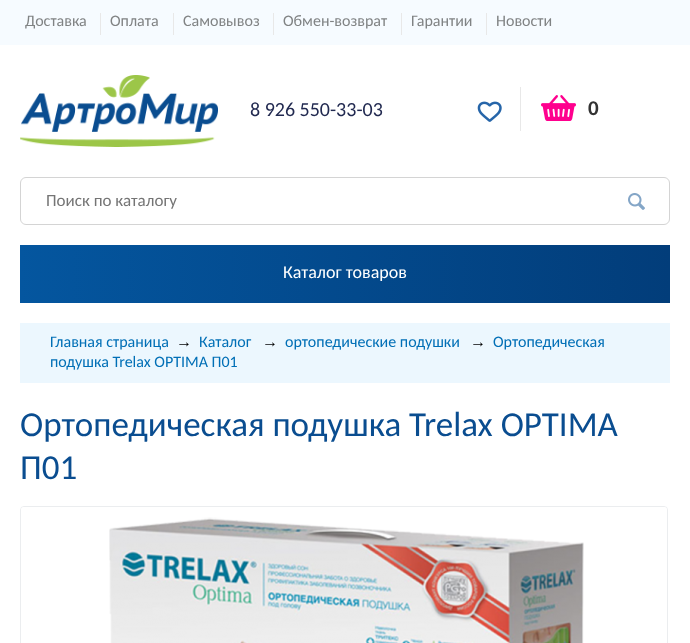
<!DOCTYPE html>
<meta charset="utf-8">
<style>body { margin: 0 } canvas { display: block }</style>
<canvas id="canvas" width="690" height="643"></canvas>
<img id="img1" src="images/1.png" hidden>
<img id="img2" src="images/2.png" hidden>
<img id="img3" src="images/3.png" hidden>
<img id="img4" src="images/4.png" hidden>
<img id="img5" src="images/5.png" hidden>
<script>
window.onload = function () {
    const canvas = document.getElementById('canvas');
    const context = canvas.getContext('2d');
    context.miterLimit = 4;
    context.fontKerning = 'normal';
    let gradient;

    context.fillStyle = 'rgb(255, 255, 255)';
    context.fillRect(0, 0, 690, 643);
    context.fillStyle = 'rgb(246, 251, 255)';
    context.fillRect(0, 0, 690, 45);
    context.fillStyle = 'rgb(232, 232, 232)';
    context.fillRect(100, 13, 1, 22);
    context.fillRect(173, 13, 1, 22);
    context.fillRect(273, 13, 1, 22);
    context.fillRect(401, 13, 1, 22);
    context.fillRect(486, 13, 1, 22);
    context.drawImage(document.getElementById('img1'), 20, 75, 198, 72);
    context.drawImage(document.getElementById('img2'), 477, 101, 25, 21);
    context.fillRect(520, 87, 1, 44);
    context.drawImage(document.getElementById('img3'), 541, 95, 35, 26);
    context.beginPath();
    context.roundRect(20.5, 177.5, 649, 47, 5.5);
    context.strokeStyle = 'rgb(212, 212, 212)';
    context.stroke();
    context.drawImage(document.getElementById('img4'), 628, 193, 17, 17);
    gradient = context.createLinearGradient(20, 274, 670, 274);
    gradient.addColorStop(0, 'rgb(4, 86, 159)');
    gradient.addColorStop(1, 'rgb(2, 61, 122)');
    context.fillStyle = gradient;
    context.fillRect(20, 245, 650, 58);
    context.fillStyle = 'rgb(236, 247, 254)';
    context.fillRect(20, 323, 650, 60);
    context.beginPath();
    context.roundRect(20.5, 506.5, 647, 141, 3.5);
    context.strokeStyle = 'rgb(235, 237, 239)';
    context.stroke();
    context.fillStyle = 'rgb(255, 255, 255)';
    context.beginPath();
    context.roundRect(21, 507, 646, 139, 3);
    context.fill();
    context.drawImage(document.getElementById('img5'), 109, 517, 475, 126);
    context.font = '16px Carlito';
    context.fillStyle = 'rgb(128, 131, 132)';
    context.fillText('Доставка', 25, 26);
    context.fillText('Оплата', 110, 26);
    context.fillText('Самовывоз', 183, 26);
    context.fillText('Обмен-возврат', 283, 26);
    context.fillText('Гарантии', 411, 26);
    context.fillText('Новости', 496, 26);
    context.font = '20px Carlito';
    context.fillStyle = 'rgb(33, 41, 80)';
    context.fillText('8 926 550-33-03', 250, 116);
    context.font = 'bold 21px Carlito';
    context.fillStyle = 'rgb(51, 51, 51)';
    context.fillText('0', 588, 115);
    context.font = '17px Carlito';
    context.fillStyle = 'rgb(117, 117, 117)';
    context.fillText('Поиск по каталогу', 46, 206);
    context.font = '18px Carlito';
    context.fillStyle = 'rgb(255, 255, 255)';
    context.fillText('Каталог товаров', 283, 278);
    context.font = '16px Carlito';
    context.fillStyle = 'rgb(0, 111, 182)';
    context.fillText('Главная страница', 50, 347);
    context.font = '16px Liberation Serif';
    context.fillStyle = 'rgb(0, 0, 0)';
    context.fillText('→', 176, 347);
    context.font = '16px Carlito';
    context.fillStyle = 'rgb(0, 111, 182)';
    context.fillText('Каталог', 199, 347);
    context.font = '16px Liberation Serif';
    context.fillStyle = 'rgb(0, 0, 0)';
    context.fillText('→', 262, 347);
    context.font = '16px Carlito';
    context.fillStyle = 'rgb(0, 111, 182)';
    context.fillText('oртопедические подушки', 285, 347);
    context.font = '16px Liberation Serif';
    context.fillStyle = 'rgb(0, 0, 0)';
    context.fillText('→', 470, 347);
    context.font = '16px Carlito';
    context.fillStyle = 'rgb(0, 111, 182)';
    context.fillText('Ортопедическая', 493, 347);
    context.fillText('подушка Trelax OPTIMA П01', 50, 367);
    context.font = '35px Carlito';
    context.fillStyle = 'rgb(10, 77, 144)';
    context.fillText('Ортопедическая подушка Trelax OPTIMA', 20, 436);
    context.fillText('П01', 20, 479);
};
</script>
